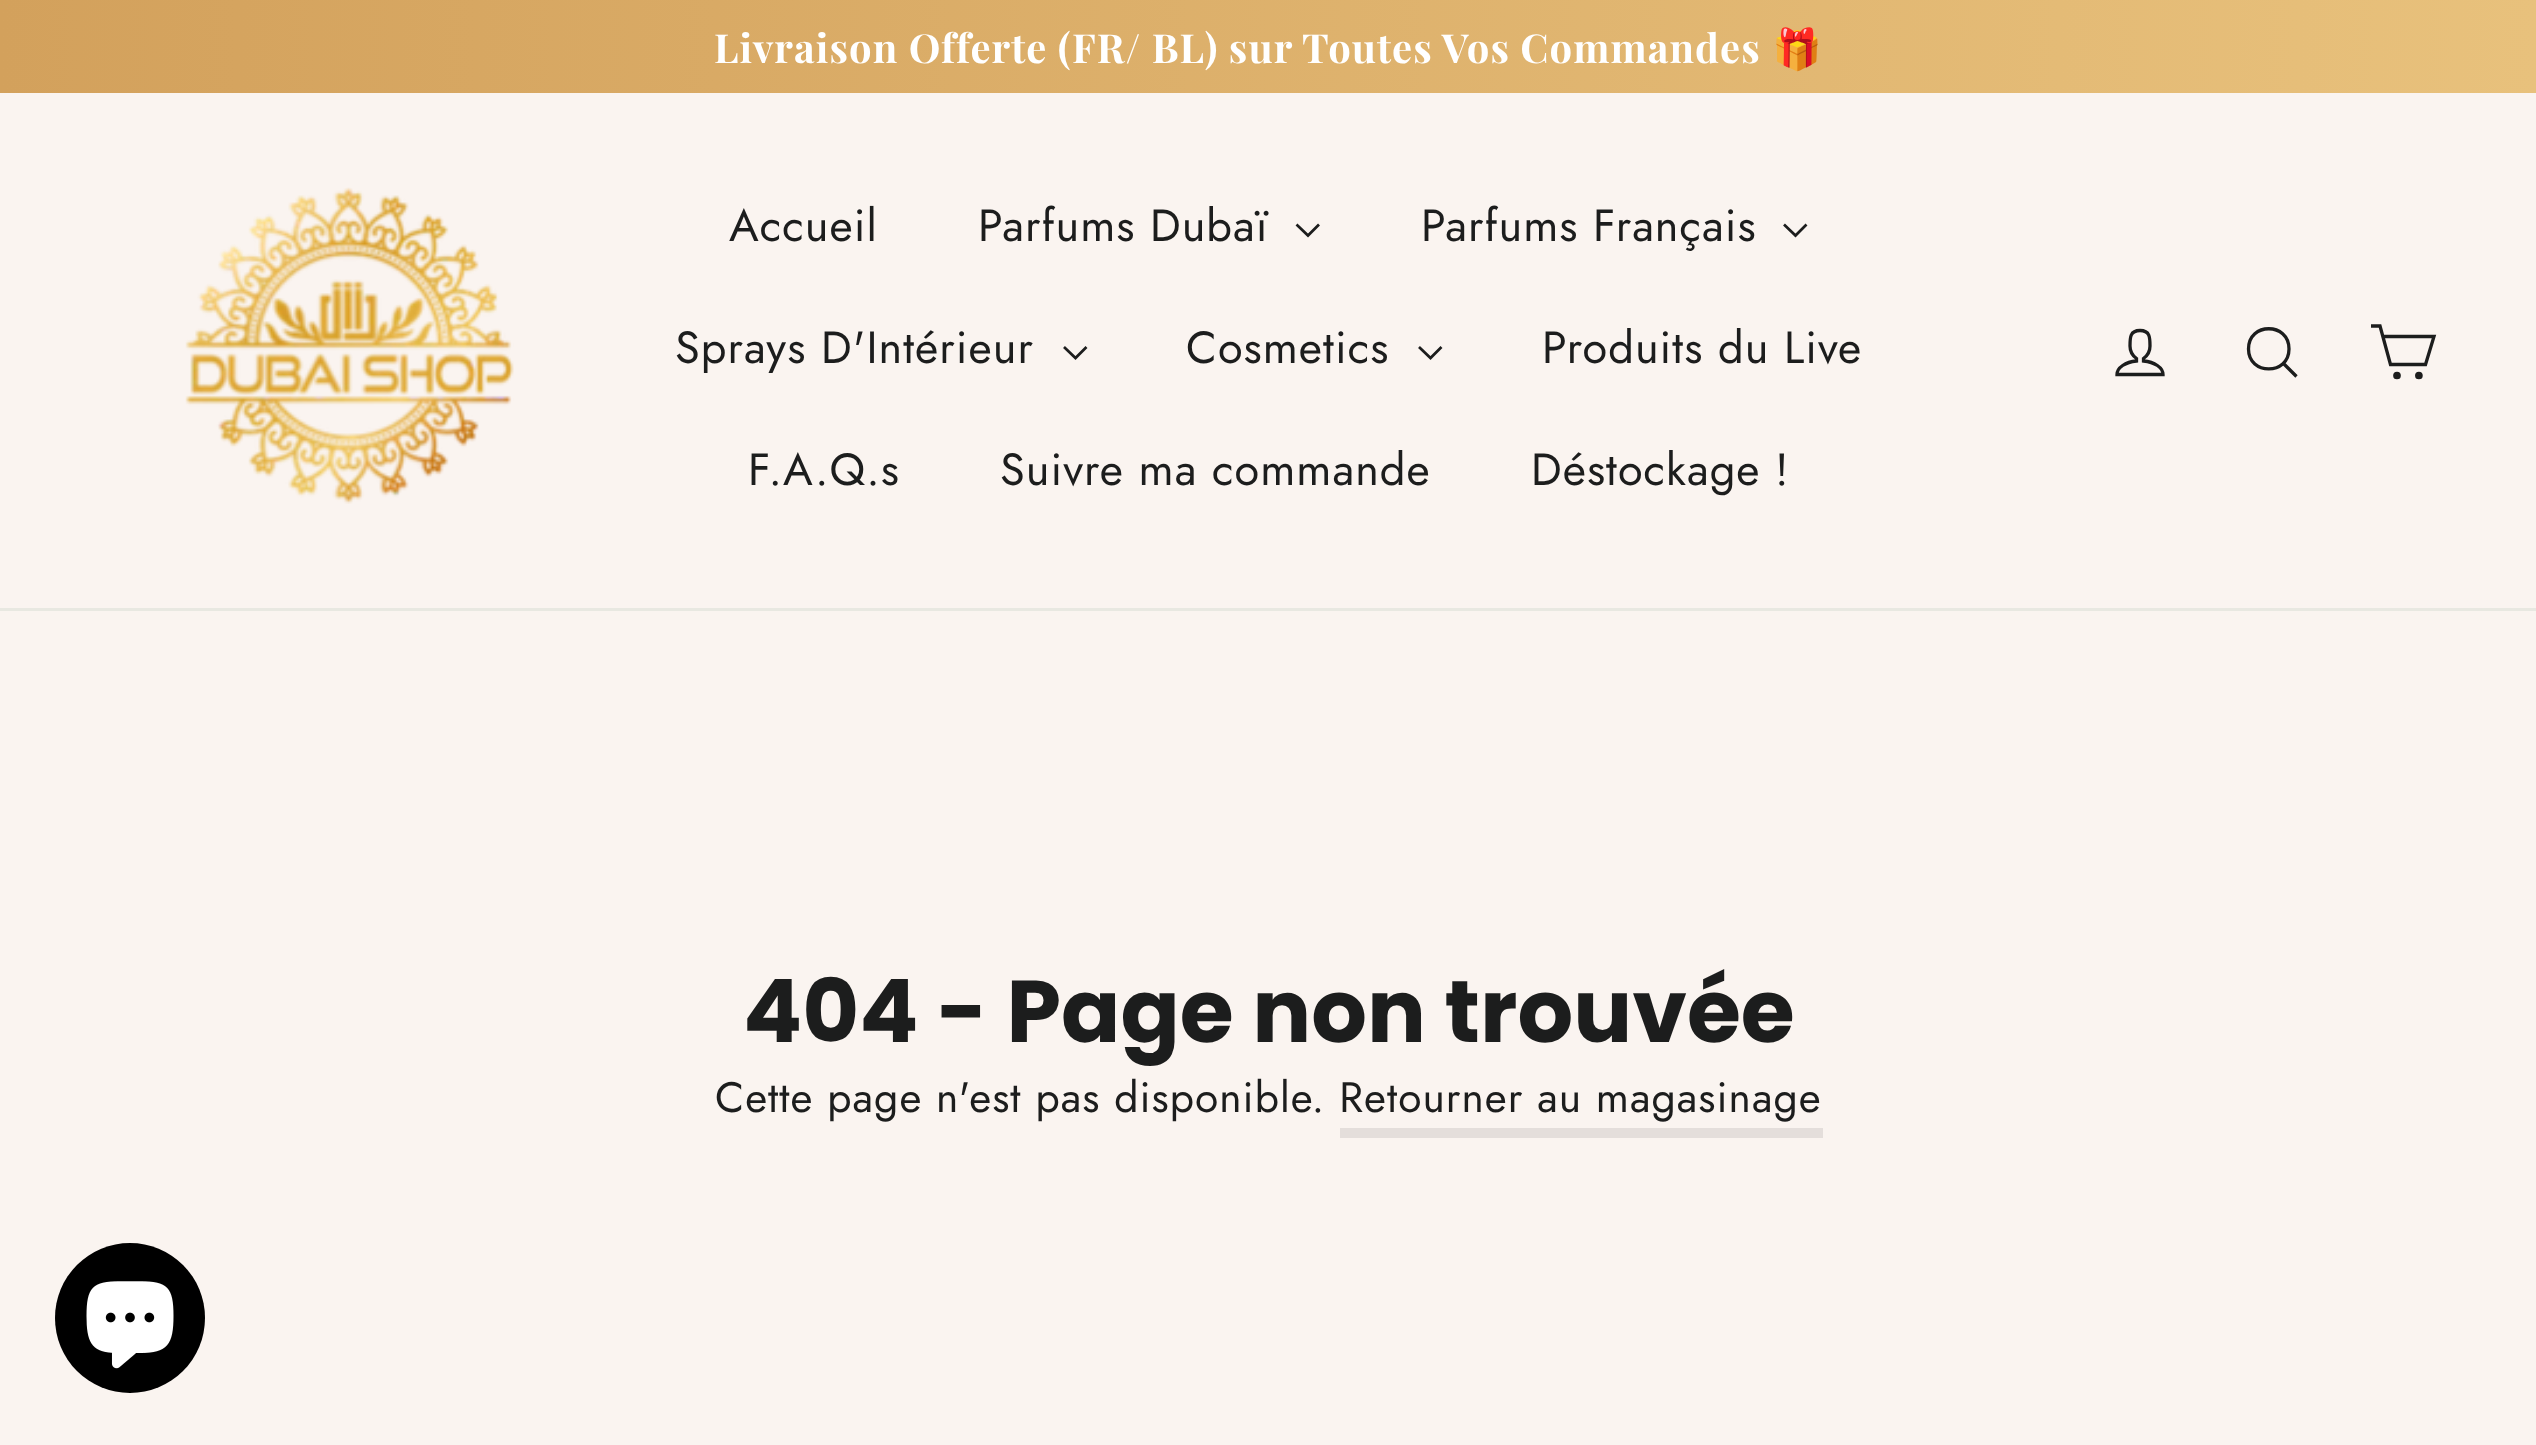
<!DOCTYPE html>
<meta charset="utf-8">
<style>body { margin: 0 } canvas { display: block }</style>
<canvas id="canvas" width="2536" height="1445"></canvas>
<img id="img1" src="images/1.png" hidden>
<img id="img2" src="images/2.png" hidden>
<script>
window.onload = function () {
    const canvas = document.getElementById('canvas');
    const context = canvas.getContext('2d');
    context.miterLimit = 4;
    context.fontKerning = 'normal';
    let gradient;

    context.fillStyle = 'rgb(250, 244, 240)';
    context.fillRect(0, 0, 2536, 1445);
    gradient = context.createLinearGradient(0, 46, 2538, 46);
    gradient.addColorStop(0, 'rgb(211, 161, 92)');
    gradient.addColorStop(1, 'rgb(232, 193, 124)');
    context.fillStyle = gradient;
    context.fillRect(0, 0, 2536, 93);
    context.fillStyle = 'rgb(232, 232, 225)';
    context.fillRect(0, 608, 2536, 3);
    context.drawImage(document.getElementById('img1'), 185, 187, 329, 317);
    context.beginPath();
    context.moveTo(1296.5, 224.5);
    context.lineTo(1308, 235.5);
    context.lineTo(1319, 224.5);
    context.strokeStyle = 'rgb(28, 29, 29)';
    context.lineWidth = 2.7;
    context.stroke();
    context.beginPath();
    context.moveTo(1784, 224.5);
    context.lineTo(1795.5, 235.5);
    context.lineTo(1806.5, 224.5);
    context.stroke();
    context.beginPath();
    context.moveTo(1064, 347);
    context.lineTo(1075.5, 358);
    context.lineTo(1086.5, 347);
    context.stroke();
    context.beginPath();
    context.moveTo(1419, 347);
    context.lineTo(1430.5, 358);
    context.lineTo(1441.5, 347);
    context.stroke();
    context.beginPath();
    context.moveTo(2143.5, 361);
    context.lineTo(2143.5, 358.5);
    context.bezierCurveTo(2147, 356, 2150, 351, 2150, 346);
    context.bezierCurveTo(2150, 337.5, 2150, 330.5, 2140, 330.5);
    context.bezierCurveTo(2130, 330.5, 2130, 337.5, 2130, 346);
    context.bezierCurveTo(2130, 351, 2133, 356, 2136.5, 358.5);
    context.lineTo(2136.5, 361);
    context.bezierCurveTo(2125.5, 362, 2117, 367.5, 2117, 374.5);
    context.lineTo(2163, 374.5);
    context.bezierCurveTo(2163, 367.5, 2154.5, 362, 2143.5, 361);
    context.closePath();
    context.lineWidth = 3.3;
    context.stroke();
    context.beginPath();
    context.moveTo(2289, 349);
    context.bezierCurveTo(2289, 375.5, 2248.5, 375.5, 2248.5, 349);
    context.bezierCurveTo(2248.5, 322, 2289, 322, 2289, 349);
    context.closePath();
    context.moveTo(2296.5, 376.5);
    context.lineTo(2283.5, 363.5);
    context.stroke();
    context.beginPath();
    context.moveTo(2383, 336.5);
    context.lineTo(2434, 336.5);
    context.lineTo(2425.5, 364.5);
    context.lineTo(2390.5, 364.5);
    context.lineTo(2380, 326);
    context.lineTo(2371, 326);
    context.stroke();
    context.fillStyle = 'rgb(28, 29, 29)';
    context.beginPath();
    context.arc(2397, 375.5, 2.2, 0, 2 * Math.PI);
    context.fill();
    context.stroke();
    context.beginPath();
    context.arc(2418.9, 375.5, 2.2, 0, 2 * Math.PI);
    context.fill();
    context.stroke();
    context.fillStyle = 'rgb(228, 222, 219)';
    context.fillRect(1340, 1128, 483, 10);
    context.fillStyle = 'rgb(0, 0, 0)';
    context.beginPath();
    context.arc(130, 1318, 75, 0, 2 * Math.PI);
    context.fill();
    context.drawImage(document.getElementById('img2'), 86, 1281, 88, 88);
    context.letterSpacing = '1.05px';
    context.font = 'bold 40px Playfair Display';
    context.fillStyle = 'rgb(255, 255, 255)';
    context.fillText('Livraison Offerte (FR/ BL) sur Toutes Vos Commandes', 714, 63);
    context.font = 'bold 40px Noto Color Emoji';
    context.fillText('🎁', 1772, 63);
    context.font = '45px Jost';
    context.fillStyle = 'rgb(28, 29, 29)';
    context.fillText('Accueil', 729, 241);
    context.fillText('Parfums Dubaï', 978, 241);
    context.fillText('Parfums Français', 1421, 241);
    context.fillText('Sprays D\'Intérieur', 675, 363);
    context.fillText('Cosmetics', 1186, 363);
    context.fillText('Produits du Live', 1542, 363);
    context.fillText('F.A.Q.s', 748, 485);
    context.fillText('Suivre ma commande', 1000, 485);
    context.fillText('Déstockage !', 1531, 485);
    context.letterSpacing = '0px';
    context.font = 'bold 87.5px Poppins';
    context.fillText('404 - Page non trouvée', 743, 1042);
    context.letterSpacing = '1.05px';
    context.font = '42.5px Jost';
    context.fillText('Cette page n\'est pas disponible. Retourner au magasinage', 715, 1112);
};
</script>
